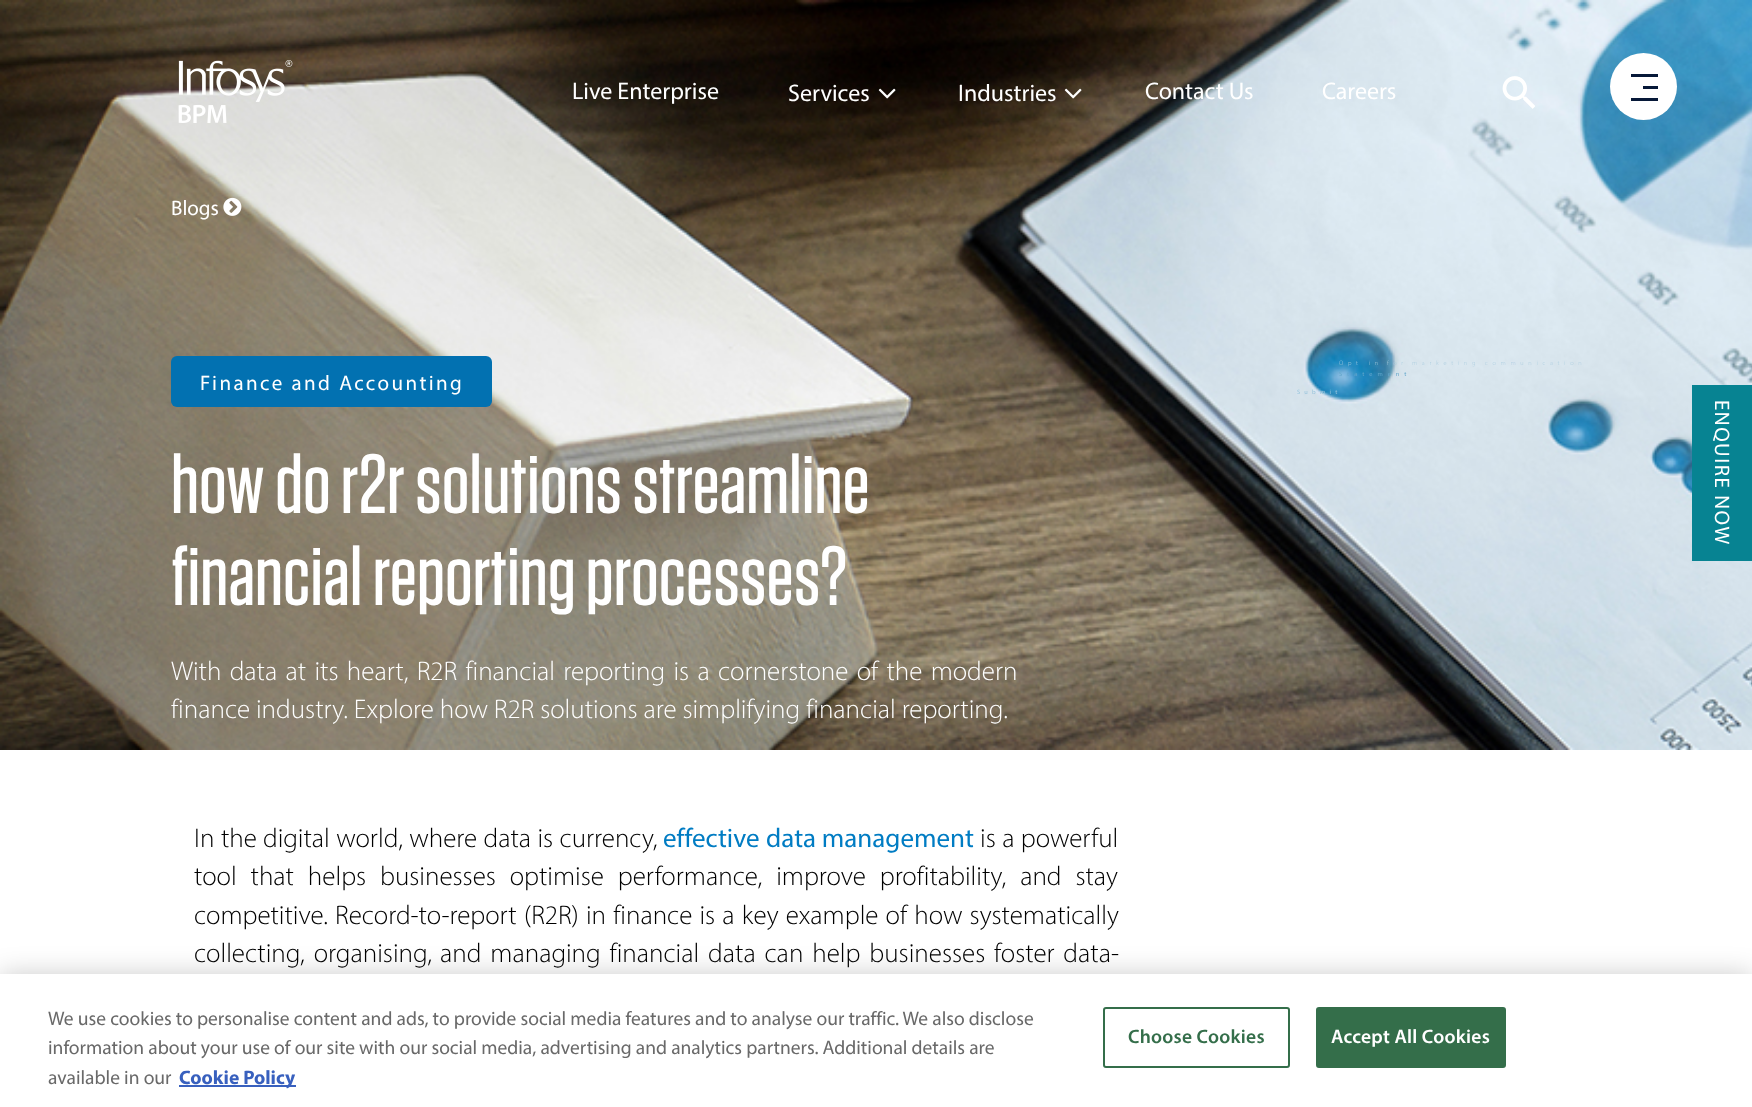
<!DOCTYPE html>
<meta charset="utf-8">
<style>body { margin: 0 } canvas { display: block }</style>
<canvas id="canvas" width="1752" height="1107"></canvas>
<img id="img1" src="images/6.png" hidden>
<img id="img2" src="images/1.png" hidden>
<img id="img3" src="images/2.png" hidden>
<img id="img4" src="images/3.png" hidden>
<img id="img5" src="images/4.png" hidden>
<img id="img6" src="images/5.png" hidden>
<script>
window.onload = function () {
    const canvas = document.getElementById('canvas');
    const context = canvas.getContext('2d');
    context.miterLimit = 4;
    context.fontKerning = 'normal';

    context.fillStyle = 'rgb(255, 255, 255)';
    context.fillRect(0, 0, 1752, 1107);
    context.drawImage(document.getElementById('img1'), 0, 0, 1752, 750);
    context.drawImage(document.getElementById('img2'), 178, 60, 115, 63);
    context.drawImage(document.getElementById('img3'), 878, 88, 18, 11);
    context.drawImage(document.getElementById('img4'), 1064, 88, 18, 11);
    context.drawImage(document.getElementById('img5'), 1502, 76, 33, 33);
    context.beginPath();
    context.arc(1643.5, 86.5, 33.5, 0, 2 * Math.PI);
    context.fill();
    context.fillStyle = 'rgb(6, 24, 56)';
    context.fillRect(1631, 74, 27, 3);
    context.fillRect(1643, 86, 15, 3);
    context.fillRect(1631, 98, 27, 3);
    context.drawImage(document.getElementById('img6'), 223, 197, 19, 19);
    context.fillStyle = 'rgb(2, 113, 177)';
    context.beginPath();
    context.roundRect(171, 356, 321, 51, 6);
    context.fill();
    context.fillStyle = 'rgb(7, 131, 146)';
    context.fillRect(1692, 385, 60, 176);
    context.fillStyle = 'rgba(0, 0, 0, 0.2)';
    context.filter = 'blur(13.5px)';
    context.beginPath();
    context.rect(0, 974, 1752, 133);
    context.fill();
    context.filter = 'none';
    context.fillStyle = 'rgb(255, 255, 255)';
    context.fillRect(0, 974, 1752, 133);
    context.fillStyle = 'rgb(56, 96, 190)';
    context.fillRect(179, 1085, 117, 2);
    context.beginPath();
    context.roundRect(1104, 1008, 185, 59, 2);
    context.strokeStyle = 'rgb(52, 110, 74)';
    context.lineWidth = 2;
    context.stroke();
    context.fillStyle = 'rgb(52, 110, 74)';
    context.beginPath();
    context.roundRect(1317, 1008, 188, 59, 2);
    context.fill();
    context.stroke();
    context.font = '24px Myriad';
    context.fillStyle = 'rgb(255, 255, 255)';
    context.fillText('Live Enterprise', 572, 99);
    context.fillText('Services', 788, 101);
    context.fillText('Industries', 958, 101);
    context.fillText('Contact Us', 1145, 99);
    context.fillText('Careers', 1322, 99);
    context.font = '21px Myriad';
    context.fillText('Blogs', 171, 215);
    context.letterSpacing = '2.4px';
    context.fillText('Finance and Accounting', 200, 390);
    context.letterSpacing = '0px';
    context.font = '500 84px "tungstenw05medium"';
    context.fillText('how do r2r solutions streamline', 171, 513);
    context.fillText('financial reporting processes?', 171, 605);
    context.wordSpacing = '2.4px';
    context.font = '300 27px Myriad';
    context.fillText('With data at its heart, R2R financial reporting is a cornerstone of the modern', 171, 680);
    context.wordSpacing = '0px';
    context.fillText('finance industry. Explore how R2R solutions are simplifying financial reporting.', 171, 718);
    context.wordSpacing = '0.5px';
    context.fillStyle = 'rgb(0, 0, 0)';
    context.fillText('In the', 194, 847);
    context.fillText('digital world, where data is currency,', 263, 847);
    context.wordSpacing = '0px';
    context.font = '27px Myriad';
    context.fillStyle = 'rgb(0, 124, 195)';
    context.fillText('effective', 663, 847);
    context.fillText('data management', 766, 847);
    context.wordSpacing = '0.5px';
    context.font = '300 27px Myriad';
    context.fillStyle = 'rgb(0, 0, 0)';
    context.fillText('is a powerful', 980, 847);
    context.wordSpacing = '8px';
    context.fillText('tool that helps', 194, 885);
    context.fillText('businesses optimise performance, improve profitability, and stay', 380, 885);
    context.wordSpacing = '1px';
    context.fillText('competitive. Record-to-report', 194, 924);
    context.wordSpacing = '1.25px';
    context.fillText('(R2R) in finance is a key example of how systematically', 524, 924);
    context.wordSpacing = '3px';
    context.fillText('collecting, organising,', 194, 962);
    context.fillText('and managing financial data can help businesses foster data-', 440, 962);
    context.letterSpacing = '4.7px';
    context.wordSpacing = '0px';
    context.font = '300 6.3px Myriad';
    context.fillStyle = 'rgb(173, 206, 224)';
    context.fillText('Opt in', 1339, 365);
    context.fillText('for', 1387, 365);
    context.fillText('marketing', 1412, 365);
    context.fillText('communication', 1485, 365);
    context.letterSpacing = '5px';
    context.font = '6.3px Myriad';
    context.fillStyle = 'rgb(99, 166, 203)';
    context.fillText('Statement', 1339, 376);
    context.letterSpacing = '4.25px';
    context.fillStyle = 'rgb(152, 196, 220)';
    context.fillText('Submit', 1297, 394);
    context.letterSpacing = '1.5px';
    context.font = '21px Myriad';
    context.fillStyle = 'rgb(255, 255, 255)';
    context.save();
    context.translate(1715, 400);
    context.rotate(90 * Math.PI / 180);
    context.fillText('ENQUIRE NOW', 0, 0);
    context.restore();
    context.letterSpacing = '0px';
    context.font = '19.5px Myriad';
    context.fillStyle = 'rgb(105, 105, 105)';
    context.fillText('We use cookies to personalise content and ads, to provide social media features and to analyse our traffic. We also disclose', 48, 1025);
    context.fillText('information about your use of our site with our social media, advertising and analytics partners. Additional details are', 48, 1054);
    context.fillText('available in our', 48, 1084);
    context.font = 'bold 19.5px Myriad';
    context.fillStyle = 'rgb(56, 96, 190)';
    context.fillText('Cookie Policy', 179, 1084);
    context.letterSpacing = '0.25px';
    context.font = '600 19.5px Myriad';
    context.fillStyle = 'rgb(52, 110, 74)';
    context.fillText('Choose Cookies', 1128, 1043);
    context.fillStyle = 'rgb(255, 255, 255)';
    context.fillText('Accept All Cookies', 1331, 1043);
};
</script>
